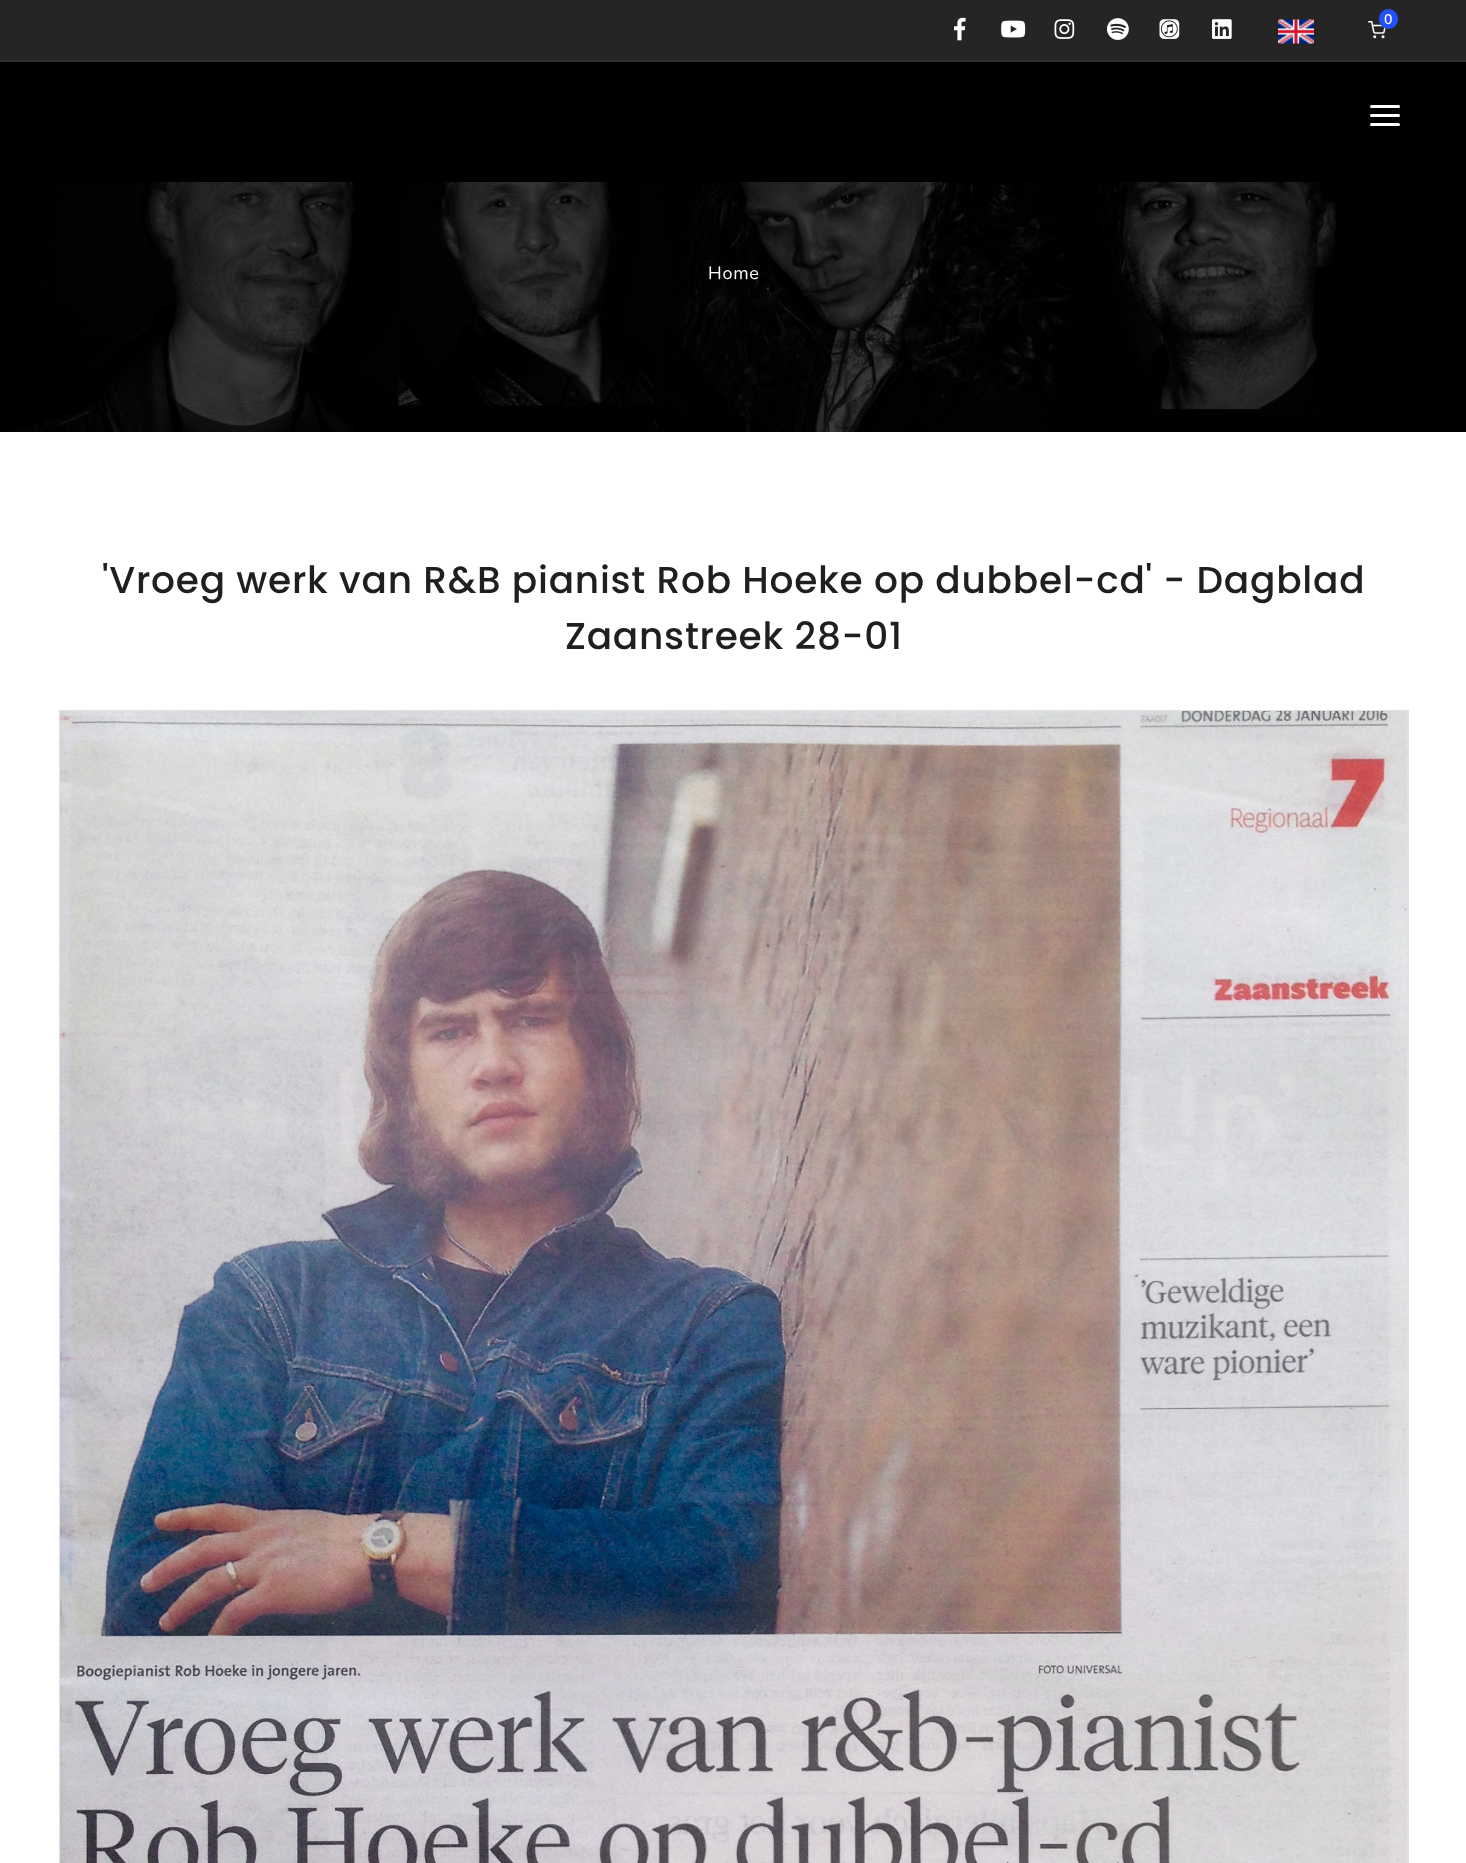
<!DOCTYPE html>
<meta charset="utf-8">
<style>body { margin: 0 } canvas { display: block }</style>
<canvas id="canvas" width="1466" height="1863"></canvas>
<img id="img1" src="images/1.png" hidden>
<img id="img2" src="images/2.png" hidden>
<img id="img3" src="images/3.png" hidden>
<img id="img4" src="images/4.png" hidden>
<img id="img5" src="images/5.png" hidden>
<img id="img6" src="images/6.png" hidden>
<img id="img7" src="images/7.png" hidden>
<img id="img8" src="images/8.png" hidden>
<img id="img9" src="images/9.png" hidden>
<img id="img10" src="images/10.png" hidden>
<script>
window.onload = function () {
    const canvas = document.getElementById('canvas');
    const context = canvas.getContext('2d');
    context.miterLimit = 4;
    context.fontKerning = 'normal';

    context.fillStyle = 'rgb(255, 255, 255)';
    context.fillRect(0, 0, 1466, 1863);
    context.fillStyle = 'rgb(37, 37, 37)';
    context.fillRect(0, 0, 1466, 60);
    context.fillStyle = 'rgb(47, 47, 47)';
    context.fillRect(0, 60, 1466, 2);
    context.drawImage(document.getElementById('img1'), 954, 17, 12, 24);
    context.drawImage(document.getElementById('img2'), 1001, 20, 25, 18);
    context.drawImage(document.getElementById('img3'), 1054, 19, 21, 20);
    context.drawImage(document.getElementById('img4'), 1107, 18, 22, 22);
    context.drawImage(document.getElementById('img5'), 1159, 19, 21, 20);
    context.drawImage(document.getElementById('img6'), 1212, 19, 20, 20);
    context.drawImage(document.getElementById('img7'), 1278, 19, 36, 25);
    context.drawImage(document.getElementById('img8'), 1368, 21, 18, 18);
    context.fillStyle = 'rgb(34, 80, 252)';
    context.beginPath();
    context.roundRect(1379, 9, 19, 20, 9.5);
    context.fill();
    context.fillStyle = 'rgb(0, 0, 0)';
    context.fillRect(0, 62, 1466, 120);
    context.fillStyle = 'rgb(255, 255, 255)';
    context.beginPath();
    context.roundRect(1370, 114, 30, 3, 1.5);
    context.fill();
    context.beginPath();
    context.roundRect(1370, 105, 30, 3, 1.5);
    context.fill();
    context.beginPath();
    context.roundRect(1370, 123, 30, 3, 1.5);
    context.fill();
    context.drawImage(document.getElementById('img9'), 0, 182, 1466, 250);
    context.strokeStyle = 'rgb(222, 226, 230)';
    context.lineWidth = 2;
    context.strokeRect(60, 711, 1348, 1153);
    context.drawImage(document.getElementById('img10'), 60, 711, 1347, 1152);
    context.font = '600 14px Nunito';
    context.fillText('0', 1384, 24);
    context.letterSpacing = '0.75px';
    context.font = '18px Nunito';
    context.fillText('Home', 708, 279);
    context.font = '500 37.5px Poppins';
    context.fillStyle = 'rgb(31, 31, 31)';
    context.fillText('\'Vroeg werk van R&B pianist Rob Hoeke op dubbel-cd\' - Dagblad', 102, 593);
    context.fillText('Zaanstreek 28-01', 565, 649);
};
</script>
